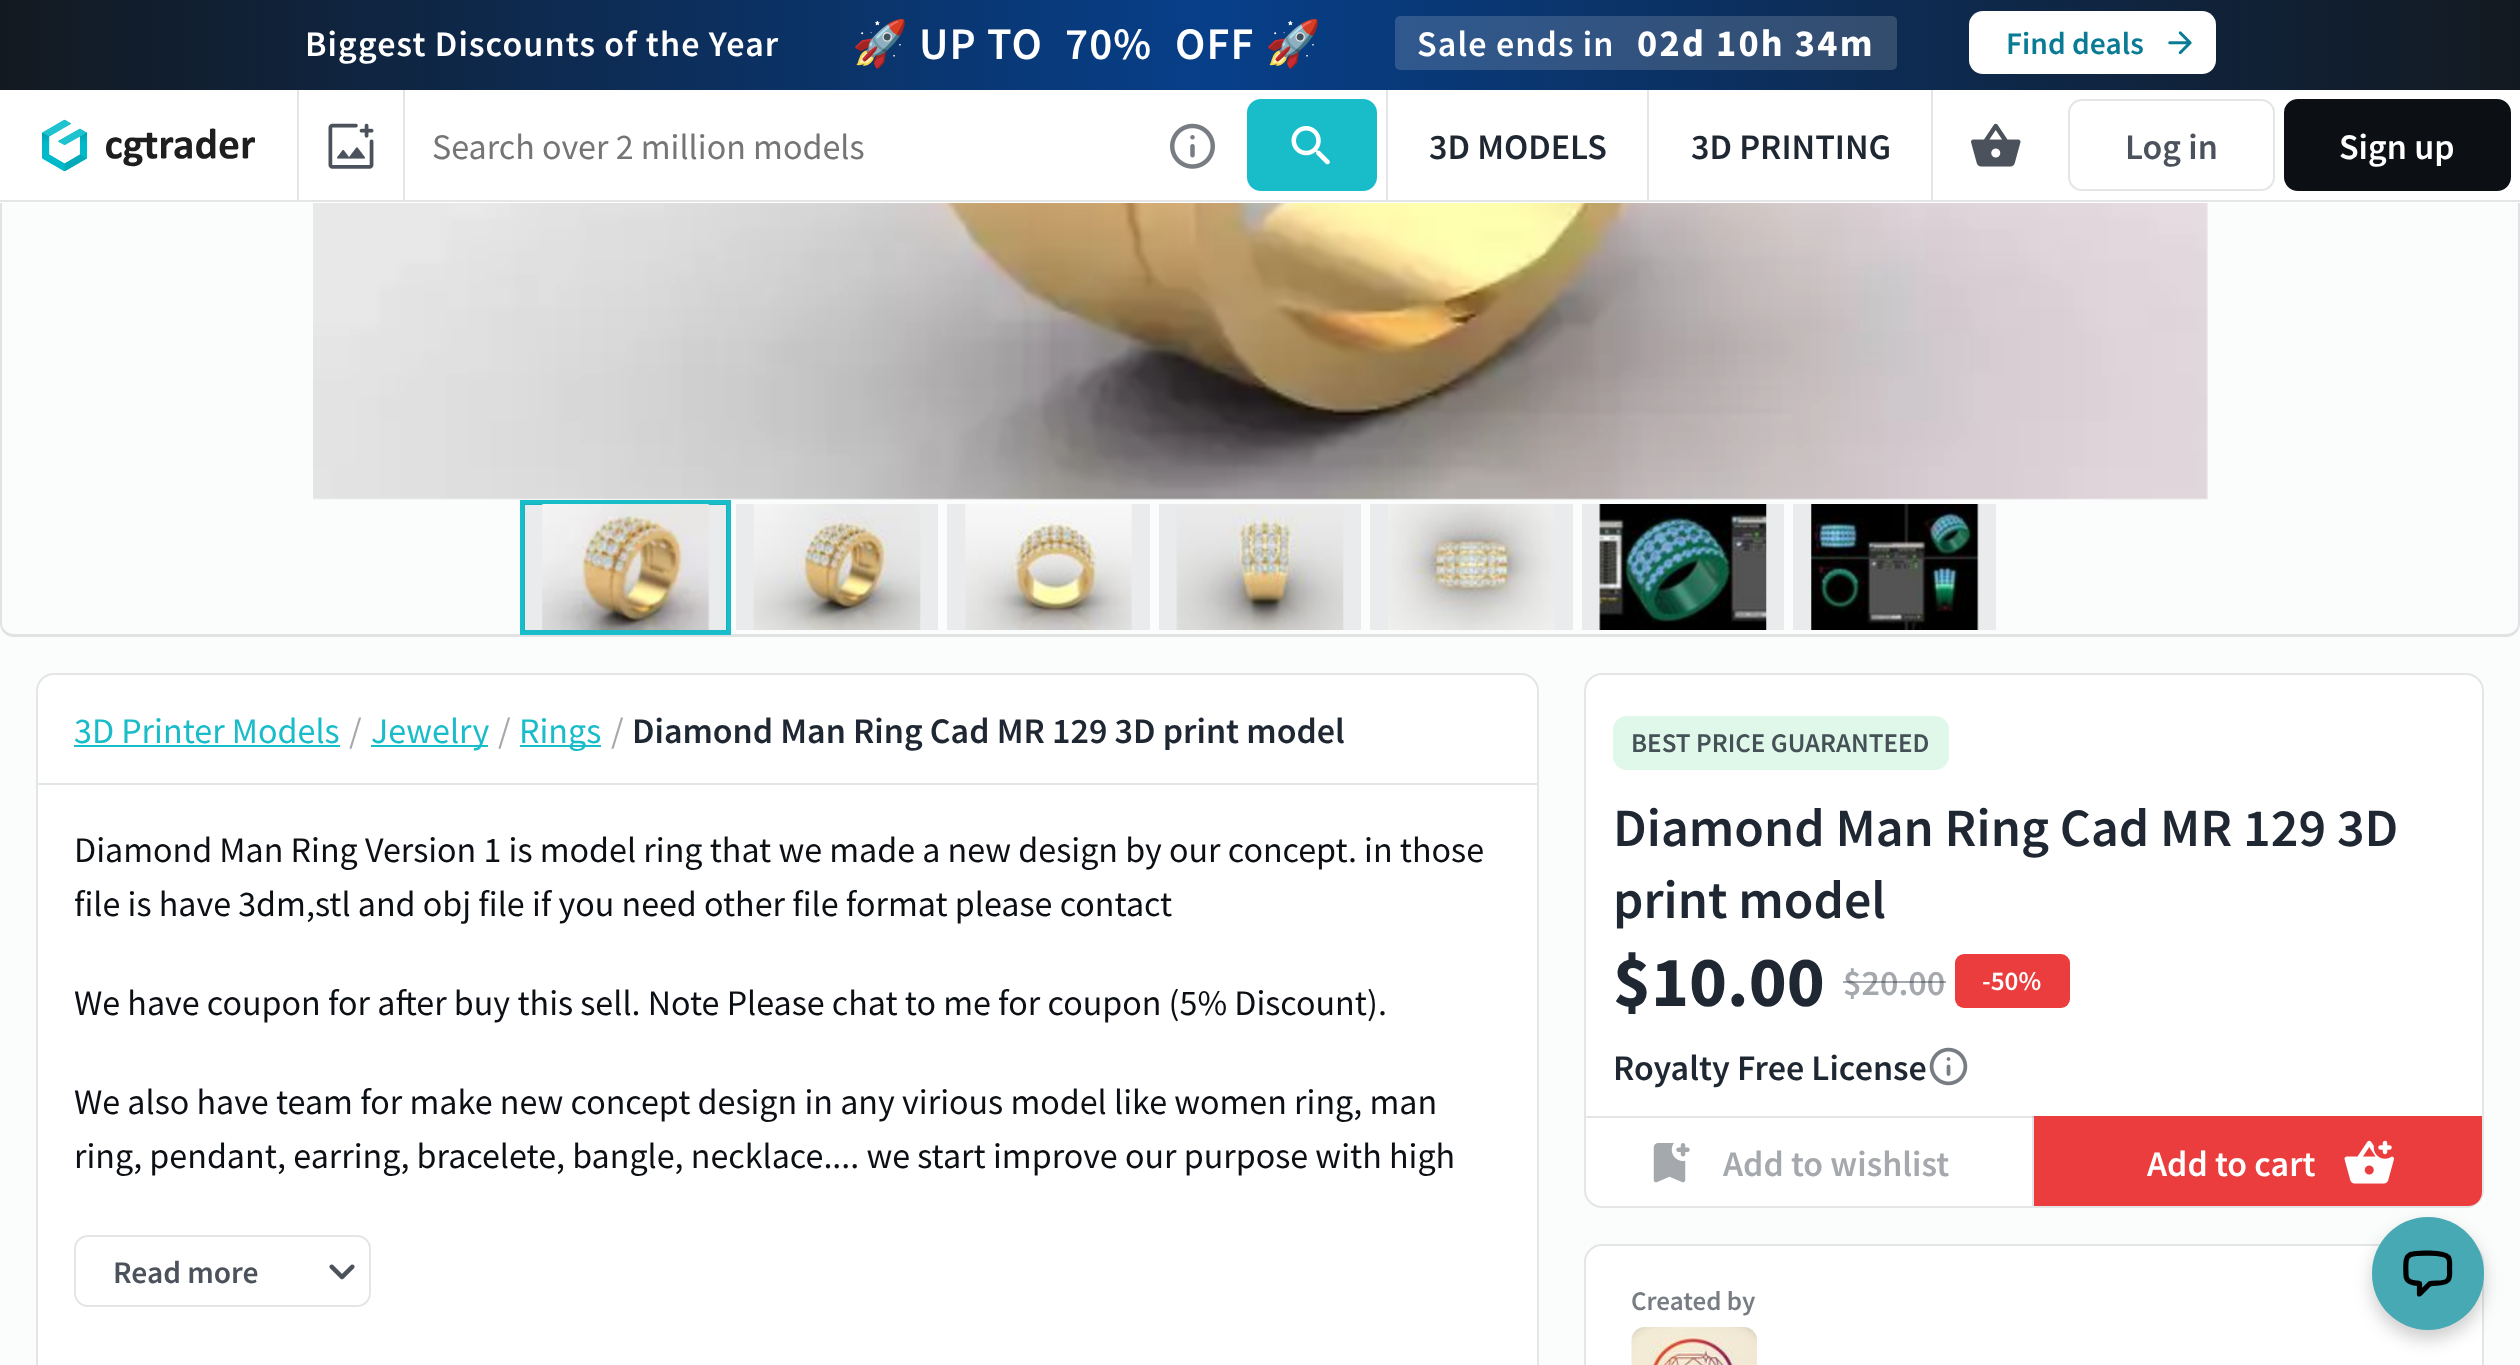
<!DOCTYPE html>
<meta charset="utf-8">
<style>body { margin: 0 } canvas { display: block }</style>
<canvas id="canvas" width="2520" height="1365"></canvas>
<img id="img1" src="images/1.png" hidden>
<img id="img2" src="images/2.png" hidden>
<img id="img3" src="images/3.png" hidden>
<img id="img4" src="images/4.png" hidden>
<img id="img5" src="images/5.png" hidden>
<img id="img6" src="images/6.png" hidden>
<img id="img7" src="images/7.png" hidden>
<img id="img8" src="images/8.png" hidden>
<img id="img9" src="images/9.png" hidden>
<img id="img10" src="images/10.png" hidden>
<img id="img11" src="images/11.png" hidden>
<img id="img12" src="images/12.png" hidden>
<img id="img13" src="images/13.png" hidden>
<img id="img14" src="images/14.png" hidden>
<img id="img15" src="images/15.png" hidden>
<img id="img16" src="images/16.png" hidden>
<img id="img17" src="images/17.png" hidden>
<img id="img18" src="images/18.png" hidden>
<img id="img19" src="images/19.png" hidden>
<script>
window.onload = function () {
    const canvas = document.getElementById('canvas');
    const context = canvas.getContext('2d');
    context.miterLimit = 4;
    context.fontKerning = 'normal';
    let gradient;

    context.fillStyle = 'rgb(251, 252, 252)';
    context.fillRect(0, 0, 2520, 1365);
    context.fillStyle = 'rgb(224, 226, 228)';
    context.beginPath();
    context.moveTo(14, -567);
    context.bezierCurveTo(6, -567, 0, -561, 0, -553);
    context.lineTo(0, 500);
    context.lineTo(2, 500);
    context.lineTo(2, -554);
    context.bezierCurveTo(2, -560, 7, -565, 14, -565);
    context.lineTo(2506, -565);
    context.bezierCurveTo(2513, -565, 2518, -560, 2518, -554);
    context.lineTo(2518, 500);
    context.lineTo(2520, 500);
    context.lineTo(2520, -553);
    context.bezierCurveTo(2520, -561, 2514, -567, 2506, -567);
    context.closePath();
    context.fill();
    context.fillStyle = 'rgb(255, 255, 255)';
    context.fillRect(0, 90, 2520, 113);
    gradient = context.createLinearGradient(0, 43, 2520, 43);
    gradient.addColorStop(0, 'rgb(19, 25, 32)');
    gradient.addColorStop(0.48, 'rgb(7, 63, 137)');
    gradient.addColorStop(1, 'rgb(19, 25, 32)');
    context.fillStyle = gradient;
    context.fillRect(0, 0, 2520, 90);
    context.fillStyle = 'rgba(255, 255, 255, 0.16)';
    context.beginPath();
    context.roundRect(1395, 16, 502, 54, 5);
    context.fill();
    context.fillStyle = 'rgb(255, 255, 255)';
    context.beginPath();
    context.roundRect(1969, 11, 247, 63, 14);
    context.fill();
    context.drawImage(document.getElementById('img1'), 2168, 31, 24, 24);
    context.fillStyle = 'rgb(228, 229, 230)';
    context.fillRect(0, 200, 2520, 2);
    context.drawImage(document.getElementById('img2'), 42, 119, 213, 53);
    context.fillRect(1386, 90, 2, 110);
    context.fillRect(297, 90, 2, 110);
    context.fillRect(403, 90, 2, 110);
    context.drawImage(document.getElementById('img3'), 328, 123, 46, 46);
    context.drawImage(document.getElementById('img4'), 1170, 123, 45, 46);
    context.fillStyle = 'rgb(25, 188, 201)';
    context.beginPath();
    context.roundRect(1248, 100, 128, 90, 13);
    context.fill();
    context.strokeStyle = 'rgb(25, 188, 201)';
    context.lineWidth = 2;
    context.stroke();
    context.drawImage(document.getElementById('img5'), 1291, 126, 39, 39);
    context.fillStyle = 'rgb(228, 229, 230)';
    context.fillRect(1647, 90, 2, 110);
    context.fillRect(1931, 90, 2, 110);
    context.drawImage(document.getElementById('img6'), 1971, 123, 50, 44);
    context.beginPath();
    context.roundRect(2069, 100, 205, 90, 13);
    context.strokeStyle = 'rgb(228, 229, 230)';
    context.stroke();
    context.fillStyle = 'rgb(12, 16, 21)';
    context.beginPath();
    context.roundRect(2285, 100, 225, 90, 13);
    context.fill();
    context.strokeStyle = 'rgb(12, 16, 21)';
    context.stroke();
    context.drawImage(document.getElementById('img7'), 313, 203, 1895, 297);
    context.fillStyle = 'rgb(224, 226, 228)';
    context.beginPath();
    context.moveTo(2, 500);
    context.lineTo(0, 500);
    context.lineTo(0, 623);
    context.bezierCurveTo(0, 631, 6, 637, 14, 637);
    context.lineTo(2506, 637);
    context.bezierCurveTo(2514, 637, 2520, 631, 2520, 623);
    context.lineTo(2520, 500);
    context.lineTo(2518, 500);
    context.lineTo(2518, 623);
    context.bezierCurveTo(2518, 629, 2513, 634, 2506, 634);
    context.lineTo(14, 634);
    context.bezierCurveTo(7, 634, 2, 629, 2, 623);
    context.closePath();
    context.fill();
    context.strokeStyle = 'rgb(25, 188, 201)';
    context.lineWidth = 5;
    context.strokeRect(522.5, 502.5, 206, 130);
    context.fillStyle = 'rgba(30, 39, 50, 0.08)';
    context.fillRect(524, 504, 203, 126);
    context.drawImage(document.getElementById('img8'), 542, 504, 168, 126);
    context.fillStyle = 'rgb(233, 235, 236)';
    context.fillRect(736, 504, 202, 126);
    context.drawImage(document.getElementById('img9'), 753, 504, 168, 126);
    context.fillRect(947, 504, 203, 126);
    context.drawImage(document.getElementById('img10'), 965, 504, 167, 126);
    context.fillRect(1159, 504, 202, 126);
    context.drawImage(document.getElementById('img11'), 1176, 504, 168, 126);
    context.fillRect(1370, 504, 203, 126);
    context.drawImage(document.getElementById('img12'), 1388, 504, 166, 126);
    context.fillRect(1582, 504, 202, 126);
    context.drawImage(document.getElementById('img13'), 1599, 504, 168, 126);
    context.fillRect(1793, 504, 203, 126);
    context.drawImage(document.getElementById('img14'), 1811, 504, 168, 126);
    context.fillStyle = 'rgb(255, 255, 255)';
    context.beginPath();
    context.roundRect(37, 674, 1501, 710, 17);
    context.fill();
    context.strokeStyle = 'rgb(228, 229, 230)';
    context.lineWidth = 2;
    context.stroke();
    context.fillStyle = 'rgb(228, 229, 230)';
    context.fillRect(38, 783, 1499, 2);
    context.fillStyle = 'rgb(25, 188, 201)';
    context.fillRect(74, 745, 266, 2);
    context.fillRect(371, 745, 117, 2);
    context.fillRect(520, 745, 81, 2);
    context.beginPath();
    context.roundRect(75, 1236, 295, 70, 13);
    context.stroke();
    context.drawImage(document.getElementById('img15'), 329, 1264, 26, 16);
    context.fillStyle = 'rgb(255, 255, 255)';
    context.beginPath();
    context.roundRect(1584, 673, 900, 535, 18);
    context.fill();
    context.fillStyle = 'rgb(228, 229, 230)';
    context.fillRect(2032, 1116, 2, 90);
    context.beginPath();
    context.roundRect(1585, 674, 898, 533, 17);
    context.stroke();
    context.fillStyle = 'rgb(224, 248, 234)';
    context.beginPath();
    context.roundRect(1613, 716, 336, 54, 14);
    context.fill();
    context.fillStyle = 'rgb(235, 61, 61)';
    context.beginPath();
    context.roundRect(1955, 954, 115, 54, 9);
    context.fill();
    context.drawImage(document.getElementById('img16'), 1929, 1047, 39, 39);
    context.fillStyle = 'rgb(228, 229, 230)';
    context.fillRect(1586, 1116, 448, 2);
    context.fillStyle = 'rgb(204, 206, 208)';
    context.fillRect(2032, 1116, 2, 2);
    context.drawImage(document.getElementById('img17'), 1653, 1143, 37, 40);
    context.fillStyle = 'rgb(235, 61, 61)';
    context.beginPath();
    context.roundRect(2034, 1116, 448, 90, [0, 0, 14, 0]);
    context.fill();
    context.drawImage(document.getElementById('img18'), 2344, 1140, 50, 44);
    context.fillStyle = 'rgb(255, 255, 255)';
    context.beginPath();
    context.roundRect(1585, 1245, 898, 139, 17);
    context.fill();
    context.stroke();
    context.drawImage(document.getElementById('img19'), 1631, 1327, 126, 38);
    context.fillStyle = 'rgba(0, 0, 0, 0.2)';
    context.filter = 'blur(9px)';
    context.beginPath();
    context.roundRect(2372, 1226, 112, 113, 56);
    context.fill();
    context.filter = 'none';
    context.fillStyle = 'rgb(70, 169, 180)';
    context.beginPath();
    context.roundRect(2372, 1217, 112, 113, 56);
    context.fill();
    context.beginPath();
    context.moveTo(2406, 1275);
    context.bezierCurveTo(2406, 1282.5, 2414, 1283, 2419.5, 1283.5);
    context.lineTo(2419.5, 1294);
    context.lineTo(2429.5, 1284);
    context.bezierCurveTo(2434.5, 1282, 2444, 1285, 2448, 1280);
    context.bezierCurveTo(2450.5, 1277, 2449.5, 1272, 2449.5, 1268.5);
    context.bezierCurveTo(2449.5, 1264.5, 2450.5, 1260, 2448, 1257);
    context.bezierCurveTo(2444, 1252, 2416.5, 1252.5, 2410.5, 1254.5);
    context.bezierCurveTo(2409, 1255.5, 2407.5, 1256.5, 2407, 1258);
    context.bezierCurveTo(2405, 1261.5, 2406, 1271, 2406, 1275);
    context.closePath();
    context.strokeStyle = 'rgb(0, 0, 0)';
    context.lineWidth = 5.2;
    context.lineCap = 'round';
    context.lineJoin = 'round';
    context.stroke();
    context.letterSpacing = '1.1px';
    context.font = '600 36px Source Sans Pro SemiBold';
    context.fillStyle = 'rgb(255, 255, 255)';
    context.fillText('Biggest Discounts of the Year', 305, 56);
    context.font = 'bold 45px Noto Color Emoji';
    context.fillText('🚀', 852, 59);
    context.font = '600 45px Source Sans Pro SemiBold';
    context.fillText('UP TO', 919, 59);
    context.fillText('70%', 1065, 59);
    context.fillText('OFF', 1175, 59);
    context.font = 'bold 45px Noto Color Emoji';
    context.fillText('🚀', 1265, 59);
    context.font = '600 36px Source Sans Pro SemiBold';
    context.fillText('Sale ends in', 1417, 56);
    context.letterSpacing = '2.25px';
    context.font = 'bold 38.25px Source Sans Pro';
    context.fillText('02d 10h 34m', 1637, 56);
    context.letterSpacing = '0px';
    context.font = '600 31.5px Source Sans Pro SemiBold';
    context.fillStyle = 'rgb(9, 123, 149)';
    context.fillText('Find deals', 2006, 54);
    context.font = '36px Source Sans Pro';
    context.fillStyle = 'rgb(117, 117, 117)';
    context.fillText('Search over 2 million models', 432, 159);
    context.font = '600 36px Source Sans Pro SemiBold';
    context.fillStyle = 'rgb(30, 39, 50)';
    context.fillText('3D MODELS', 1429, 159);
    context.fillText('3D PRINTING', 1691, 159);
    context.fillStyle = 'rgb(75, 82, 91)';
    context.fillText('Log in', 2125, 159);
    context.fillStyle = 'rgb(255, 255, 255)';
    context.fillText('Sign up', 2339, 159);
    context.font = '36px Source Sans Pro';
    context.fillStyle = 'rgb(25, 188, 201)';
    context.fillText('3D Printer Models', 74, 743);
    context.fillStyle = 'rgb(165, 169, 173)';
    context.fillText('/', 349, 743);
    context.fillStyle = 'rgb(25, 188, 201)';
    context.fillText('Jewelry', 371, 743);
    context.fillStyle = 'rgb(165, 169, 173)';
    context.fillText('/', 498, 743);
    context.fillStyle = 'rgb(25, 188, 201)';
    context.fillText('Rings', 519, 743);
    context.fillStyle = 'rgb(165, 169, 173)';
    context.fillText('/', 611, 743);
    context.font = '600 36px Source Sans Pro SemiBold';
    context.fillStyle = 'rgb(30, 39, 50)';
    context.fillText('Diamond Man Ring Cad MR 129 3D print model', 632, 743);
    context.font = '36px Source Sans Pro';
    context.fillStyle = 'rgb(12, 16, 21)';
    context.fillText('Diamond Man Ring Version 1 is model ring that we made a new design by our concept. in those', 74, 862);
    context.fillText('file is have 3dm,stl and obj file if you need other file format please contact', 74, 916);
    context.fillText('We have coupon for after buy this sell. Note Please chat to me for coupon (5% Discount).', 74, 1015);
    context.fillText('We also have team for make new concept design in any virious model like women ring, man', 74, 1114);
    context.fillText('ring, pendant, earring, bracelete, bangle, necklace.... we start improve our purpose with high', 74, 1168);
    context.font = '600 31.5px Source Sans Pro SemiBold';
    context.fillStyle = 'rgb(75, 82, 91)';
    context.fillText('Read more', 113, 1283);
    context.font = '600 27px Source Sans Pro SemiBold';
    context.fillStyle = 'rgb(69, 81, 87)';
    context.fillText('BEST PRICE GUARANTEED', 1631, 752);
    context.font = '600 54px Source Sans Pro SemiBold';
    context.fillStyle = 'rgb(30, 39, 50)';
    context.fillText('Diamond Man Ring Cad MR 129 3D', 1613, 846);
    context.fillText('print model', 1613, 918);
    context.font = 'bold 72px Source Sans Pro';
    context.fillText('$10.00', 1613, 1006);
    context.font = '600 36px Source Sans Pro SemiBold';
    context.fillStyle = 'rgb(165, 169, 173)';
    context.fillText('$20.00', 1843, 995);
    context.fillStyle = 'rgba(30, 39, 50, 0.4)';
    context.fillRect(1843, 981, 103, 2);
    context.font = '600 27px Source Sans Pro SemiBold';
    context.fillStyle = 'rgb(255, 255, 255)';
    context.fillText('-50%', 1982, 990);
    context.font = '600 36px Source Sans Pro SemiBold';
    context.fillStyle = 'rgb(30, 39, 50)';
    context.fillText('Royalty Free License', 1613, 1080);
    context.fillStyle = 'rgb(165, 169, 173)';
    context.fillText('Add to wishlist', 1723, 1176);
    context.fillStyle = 'rgb(255, 255, 255)';
    context.fillText('Add to cart', 2147, 1176);
    context.font = '600 27px Source Sans Pro SemiBold';
    context.fillStyle = 'rgb(120, 125, 132)';
    context.fillText('Created by', 1631, 1310);
};
</script>
